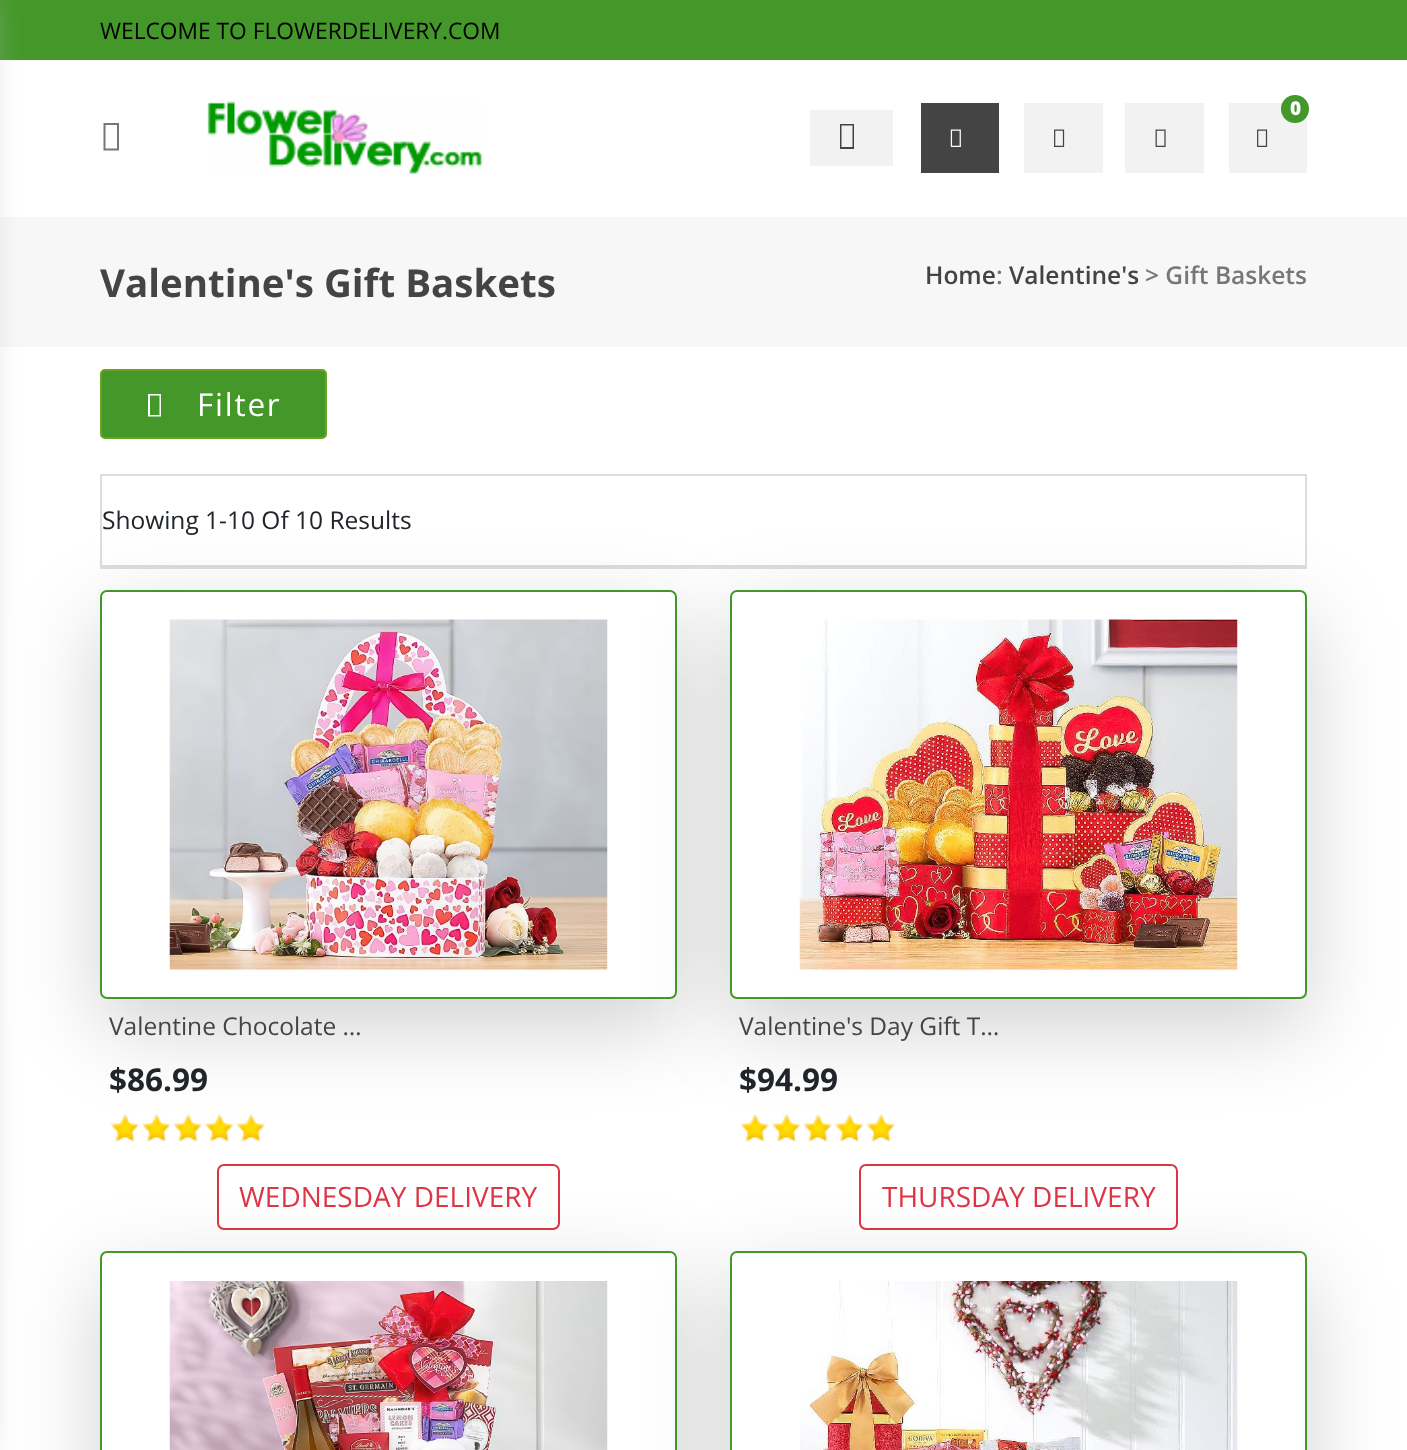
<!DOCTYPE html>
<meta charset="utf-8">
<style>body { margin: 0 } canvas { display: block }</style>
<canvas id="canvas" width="1407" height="1450"></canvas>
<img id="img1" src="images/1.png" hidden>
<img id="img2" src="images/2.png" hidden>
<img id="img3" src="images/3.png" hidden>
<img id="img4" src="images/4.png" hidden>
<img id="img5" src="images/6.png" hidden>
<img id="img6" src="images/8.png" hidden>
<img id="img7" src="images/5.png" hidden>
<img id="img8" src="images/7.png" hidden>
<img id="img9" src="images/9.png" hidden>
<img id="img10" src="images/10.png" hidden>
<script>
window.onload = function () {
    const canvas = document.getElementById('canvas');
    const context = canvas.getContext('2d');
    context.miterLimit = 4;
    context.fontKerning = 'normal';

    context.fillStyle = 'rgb(255, 255, 255)';
    context.fillRect(0, 0, 1407, 1450);
    context.fillStyle = 'rgb(68, 152, 42)';
    context.fillRect(0, 0, 1407, 60);
    context.fillStyle = 'rgb(119, 119, 119)';
    context.beginPath();
    context.moveTo(103.5, 150.5);
    context.lineTo(103.5, 123);
    context.lineTo(119, 123);
    context.lineTo(119, 150.5);
    context.closePath();
    context.moveTo(105.5, 148.5);
    context.lineTo(117, 148.5);
    context.lineTo(117, 125);
    context.lineTo(105.5, 125);
    context.closePath();
    context.fill();
    context.drawImage(document.getElementById('img1'), 207, 101, 275, 73);
    context.fillStyle = 'rgb(68, 68, 68)';
    context.fillRect(921, 103, 78, 70);
    context.drawImage(document.getElementById('img2'), 950, 129, 11, 18);
    context.fillStyle = 'rgb(242, 242, 242)';
    context.fillRect(1024, 103, 79, 70);
    context.drawImage(document.getElementById('img3'), 1054, 129, 11, 18);
    context.fillRect(1125, 103, 79, 70);
    context.drawImage(document.getElementById('img4'), 1155, 129, 11, 18);
    context.fillRect(1229, 103, 78, 70);
    context.fillStyle = 'rgb(68, 152, 42)';
    context.beginPath();
    context.arc(1295, 109, 14, 0, 2 * Math.PI);
    context.fill();
    context.drawImage(document.getElementById('img3'), 1257, 129, 11, 18);
    context.fillStyle = 'rgb(242, 242, 242)';
    context.fillRect(810, 110, 83, 56);
    context.fillStyle = 'rgb(68, 68, 68)';
    context.beginPath();
    context.moveTo(840, 149);
    context.lineTo(840, 124);
    context.lineTo(854, 124);
    context.lineTo(854, 149);
    context.closePath();
    context.moveTo(841.5, 147);
    context.lineTo(852.5, 147);
    context.lineTo(852.5, 125.5);
    context.lineTo(841.5, 125.5);
    context.closePath();
    context.fill();
    context.fillStyle = 'rgb(247, 247, 247)';
    context.fillRect(0, 217, 1407, 130);
    context.fillStyle = 'rgb(195, 195, 195)';
    context.filter = 'blur(17.5px)';
    context.beginPath();
    context.rect(-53, 0, 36, 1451);
    context.fill();
    context.filter = 'none';
    context.fillStyle = 'rgb(221, 221, 221)';
    context.fillRect(100, 567, 1207, 2);
    context.fillStyle = 'rgb(68, 152, 42)';
    context.beginPath();
    context.roundRect(101, 370, 225, 68, 4);
    context.fill();
    context.strokeStyle = 'rgb(109, 162, 32)';
    context.lineWidth = 2;
    context.stroke();
    context.fillStyle = 'rgb(255, 255, 255)';
    context.beginPath();
    context.moveTo(148, 416.5);
    context.lineTo(148, 394);
    context.lineTo(161, 394);
    context.lineTo(161, 416.5);
    context.closePath();
    context.moveTo(150, 415);
    context.lineTo(159.5, 415);
    context.lineTo(159.5, 395.5);
    context.lineTo(150, 395.5);
    context.closePath();
    context.fill();
    context.strokeStyle = 'rgb(221, 221, 221)';
    context.strokeRect(101, 475, 1205, 91);
    context.drawImage(document.getElementById('img5'), 110, 1114, 155, 28);
    context.drawImage(document.getElementById('img6'), 740, 1114, 155, 28);
    context.save();
    context.beginPath();
    context.moveTo(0, 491);
    context.lineTo(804, 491);
    context.lineTo(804, 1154);
    context.lineTo(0, 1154);
    context.closePath();
    context.moveTo(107, 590);
    context.lineTo(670, 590);
    context.bezierCurveTo(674, 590, 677, 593, 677, 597);
    context.lineTo(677, 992);
    context.bezierCurveTo(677, 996, 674, 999, 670, 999);
    context.lineTo(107, 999);
    context.bezierCurveTo(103, 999, 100, 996, 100, 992);
    context.lineTo(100, 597);
    context.bezierCurveTo(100, 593, 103, 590, 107, 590);
    context.closePath();
    context.clip('evenodd');
    context.fillStyle = 'rgba(0, 0, 0, 0.18)';
    context.filter = 'blur(42px)';
    context.beginPath();
    context.roundRect(100, 618, 577, 409, 7);
    context.fill();
    context.filter = 'none';
    context.restore();
    context.beginPath();
    context.roundRect(101, 591, 575, 407, 6);
    context.strokeStyle = 'rgb(68, 152, 42)';
    context.stroke();
    context.drawImage(document.getElementById('img7'), 169, 619, 439, 351);
    context.beginPath();
    context.roundRect(218, 1165, 341, 64, 6);
    context.strokeStyle = 'rgb(220, 53, 69)';
    context.stroke();
    context.fillStyle = 'rgba(0, 0, 0, 0.18)';
    context.filter = 'blur(42px)';
    context.beginPath();
    context.roundRect(730, 618, 577, 409, 7);
    context.fill();
    context.filter = 'none';
    context.fillStyle = 'rgb(255, 255, 255)';
    context.beginPath();
    context.roundRect(731, 591, 575, 407, 6);
    context.fill();
    context.strokeStyle = 'rgb(68, 152, 42)';
    context.stroke();
    context.drawImage(document.getElementById('img8'), 799, 619, 439, 351);
    context.beginPath();
    context.roundRect(860, 1165, 317, 64, 6);
    context.strokeStyle = 'rgb(220, 53, 69)';
    context.stroke();
    context.fillStyle = 'rgba(0, 0, 0, 0.18)';
    context.filter = 'blur(42px)';
    context.beginPath();
    context.roundRect(100, 1279, 577, 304, 7);
    context.fill();
    context.filter = 'none';
    context.fillStyle = 'rgb(255, 255, 255)';
    context.beginPath();
    context.roundRect(101, 1252, 575, 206, 6);
    context.fill();
    context.strokeStyle = 'rgb(68, 152, 42)';
    context.stroke();
    context.drawImage(document.getElementById('img9'), 169, 1281, 439, 169);
    context.fillStyle = 'rgba(0, 0, 0, 0.18)';
    context.filter = 'blur(42px)';
    context.beginPath();
    context.roundRect(730, 1279, 577, 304, 7);
    context.fill();
    context.filter = 'none';
    context.fillStyle = 'rgb(255, 255, 255)';
    context.beginPath();
    context.roundRect(731, 1252, 575, 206, 6);
    context.fill();
    context.stroke();
    context.drawImage(document.getElementById('img10'), 800, 1281, 438, 169);
    context.font = '22.75px Open Sans';
    context.fillStyle = 'rgb(0, 0, 0)';
    context.fillText('WELCOME TO FLOWERDELIVERY.COM', 100, 39);
    context.font = '900 19px Noto Sans';
    context.fillStyle = 'rgb(255, 255, 255)';
    context.fillText('0', 1290, 115);
    context.font = 'bold 38.5px Open Sans';
    context.fillStyle = 'rgb(68, 68, 68)';
    context.fillText('Valentine\'s Gift Baskets', 100, 297);
    context.font = '600 24.5px Open Sans';
    context.fillText('Home', 925, 284);
    context.fillStyle = 'rgb(119, 119, 119)';
    context.fillText(':', 996, 284);
    context.fillStyle = 'rgb(68, 68, 68)';
    context.fillText('Valentine\'s', 1009, 284);
    context.fillStyle = 'rgb(119, 119, 119)';
    context.fillText('> Gift Baskets', 1145, 284);
    context.letterSpacing = '1.75px';
    context.font = '31.5px Open Sans';
    context.fillStyle = 'rgb(255, 255, 255)';
    context.fillText('Filter', 197, 416);
    context.letterSpacing = '0px';
    context.font = '24.5px Open Sans';
    context.fillStyle = 'rgb(33, 37, 41)';
    context.fillText('Showing 1-10 Of 10 Results', 102, 529);
    context.fillStyle = 'rgb(68, 68, 68)';
    context.fillText('Valentine Chocolate …', 109, 1035);
    context.font = 'bold 31.5px Open Sans';
    context.fillStyle = 'rgb(33, 37, 41)';
    context.fillText('$86.99', 109, 1091);
    context.font = '28px Open Sans';
    context.fillStyle = 'rgb(220, 53, 69)';
    context.fillText('WEDNESDAY DELIVERY', 239, 1207);
    context.font = '24.5px Open Sans';
    context.fillStyle = 'rgb(68, 68, 68)';
    context.fillText('Valentine\'s Day Gift T…', 739, 1035);
    context.font = 'bold 31.5px Open Sans';
    context.fillStyle = 'rgb(33, 37, 41)';
    context.fillText('$94.99', 739, 1091);
    context.font = '28px Open Sans';
    context.fillStyle = 'rgb(220, 53, 69)';
    context.fillText('THURSDAY DELIVERY', 882, 1207);
};
</script>
